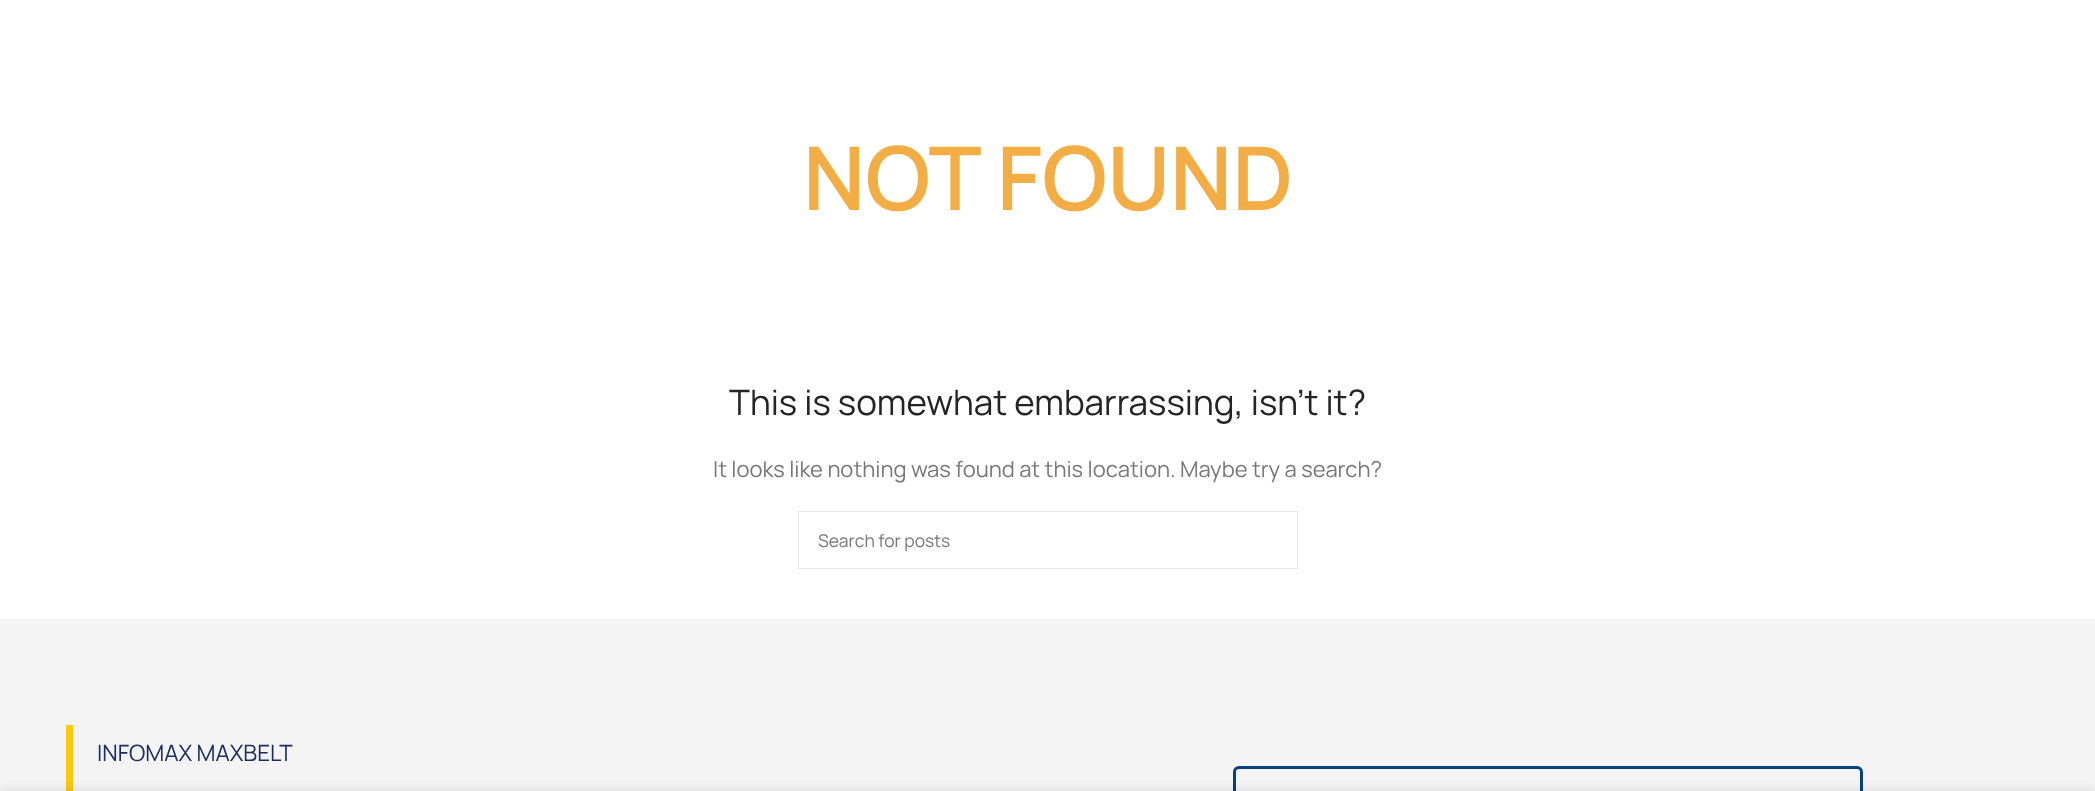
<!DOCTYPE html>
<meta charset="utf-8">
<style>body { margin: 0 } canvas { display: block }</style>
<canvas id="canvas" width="2095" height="791"></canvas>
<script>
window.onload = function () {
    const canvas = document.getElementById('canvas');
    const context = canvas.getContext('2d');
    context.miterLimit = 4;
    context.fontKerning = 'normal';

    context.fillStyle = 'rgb(255, 255, 255)';
    context.fillRect(0, 0, 2095, 791);
    context.strokeStyle = 'rgb(230, 230, 230)';
    context.strokeRect(798.5, 511.5, 499, 57);
    context.fillStyle = 'rgb(244, 244, 244)';
    context.fillRect(0, 619, 2095, 172);
    context.fillStyle = 'rgb(250, 199, 21)';
    context.fillRect(66, 725, 7, 66);
    context.beginPath();
    context.roundRect(1234.5, 767.5, 627, 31, 4.5);
    context.strokeStyle = 'rgb(6, 64, 130)';
    context.lineWidth = 3;
    context.stroke();
    context.fillStyle = 'rgba(0, 0, 0, 0.14)';
    context.filter = 'blur(5.5px)';
    context.beginPath();
    context.rect(0, 791, 2095, 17);
    context.fill();
    context.filter = 'none';
    context.font = '600 88px Manrope';
    context.fillStyle = 'rgb(242, 173, 68)';
    context.fillText('NOT FOUND', 803, 210);
    context.font = '35px Manrope';
    context.fillStyle = 'rgb(36, 36, 36)';
    context.fillText('This is somewhat embarrassing, isn’t it?', 729, 415);
    context.font = '22px Manrope';
    context.fillStyle = 'rgb(119, 119, 119)';
    context.fillText('It looks like nothing was found at this location. Maybe try a search?', 713, 477);
    context.font = '17.5px Manrope';
    context.fillText('Search for posts', 818, 547);
    context.font = '22.5px Manrope';
    context.fillStyle = 'rgb(27, 44, 96)';
    context.fillText('INFOMAX MAXBELT', 97, 761);
};
</script>
